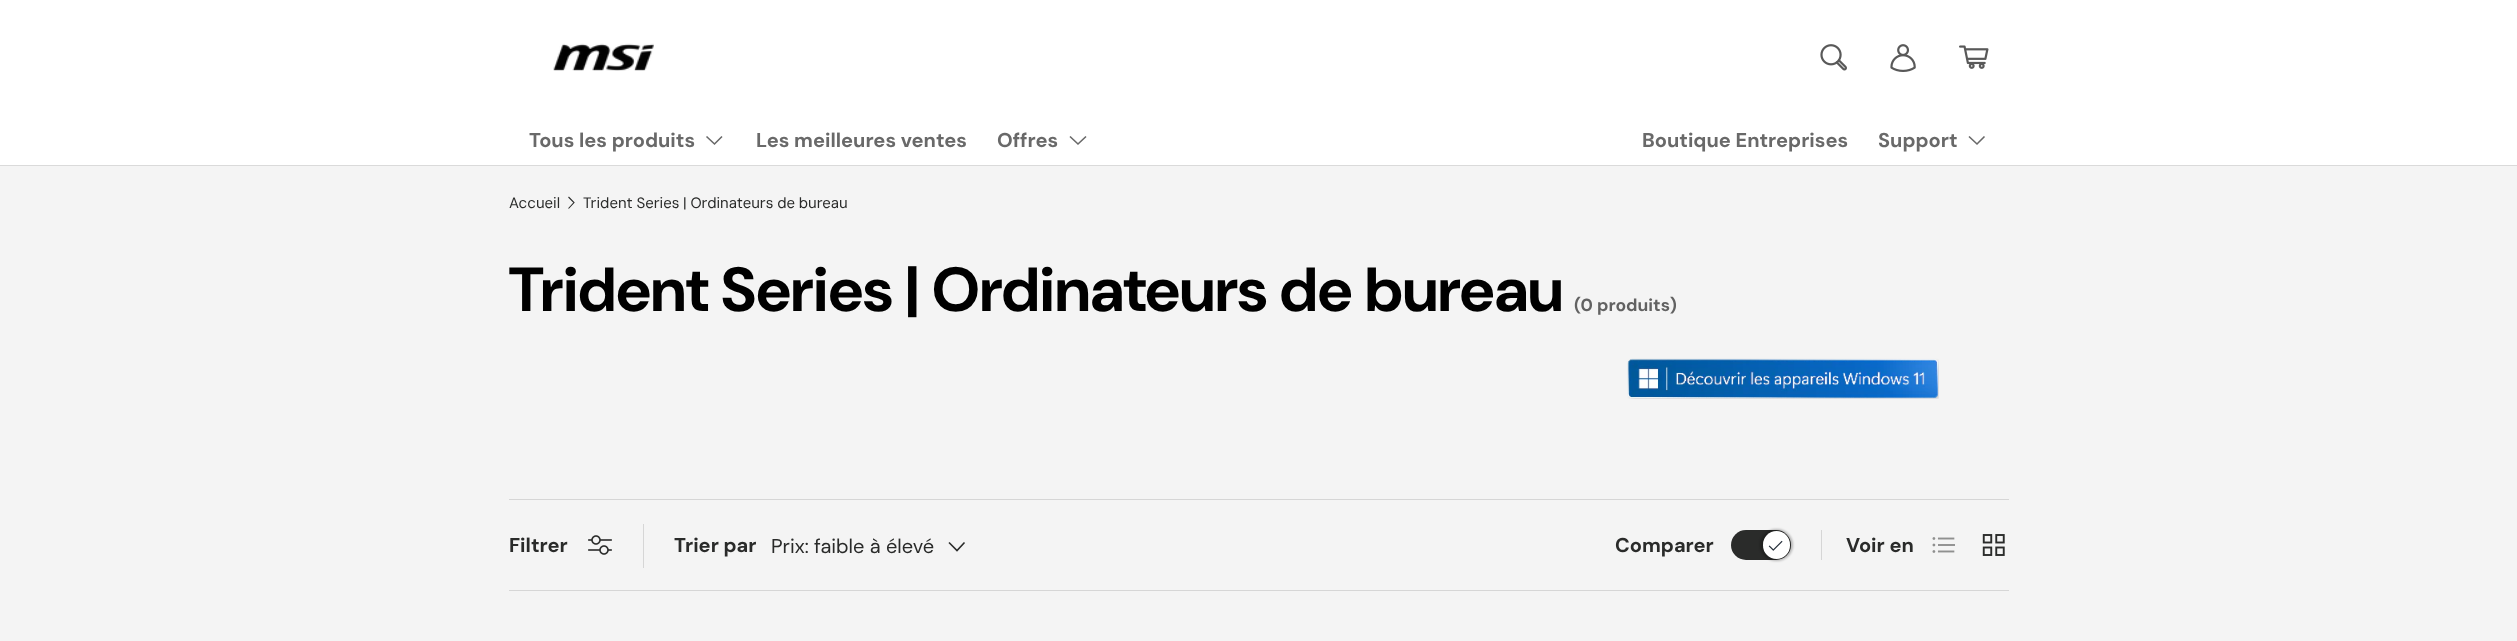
<!DOCTYPE html>
<meta charset="utf-8">
<style>body { margin: 0 } canvas { display: block }</style>
<canvas id="canvas" width="2517" height="641"></canvas>
<img id="img1" src="images/1.png" hidden>
<img id="img2" src="images/2.png" hidden>
<img id="img3" src="images/3.png" hidden>
<img id="img4" src="images/4.png" hidden>
<img id="img5" src="images/5.png" hidden>
<img id="img6" src="images/6.png" hidden>
<img id="img7" src="images/7.png" hidden>
<img id="img8" src="images/8.png" hidden>
<img id="img9" src="images/9.png" hidden>
<script>
window.onload = function () {
    const canvas = document.getElementById('canvas');
    const context = canvas.getContext('2d');
    context.miterLimit = 4;
    context.fontKerning = 'normal';

    context.fillStyle = 'rgb(244, 244, 244)';
    context.fillRect(0, 0, 2517, 641);
    context.fillStyle = 'rgb(255, 255, 255)';
    context.fillRect(0, 0, 2517, 165);
    context.fillStyle = 'rgb(218, 218, 218)';
    context.fillRect(0, 165, 2517, 1);
    context.drawImage(document.getElementById('img1'), 553, 43, 101, 28);
    context.drawImage(document.getElementById('img2'), 1820, 44, 27, 27);
    context.drawImage(document.getElementById('img3'), 1890, 44, 26, 28);
    context.drawImage(document.getElementById('img4'), 1959, 45, 30, 24);
    context.beginPath();
    context.moveTo(722, 136.5);
    context.lineTo(714.5, 144);
    context.lineTo(706.5, 136.5);
    context.strokeStyle = 'rgb(105, 105, 105)';
    context.lineWidth = 1.6;
    context.stroke();
    context.beginPath();
    context.moveTo(1086, 136.5);
    context.lineTo(1078, 144);
    context.lineTo(1070, 136.5);
    context.stroke();
    context.beginPath();
    context.moveTo(1984.5, 136.5);
    context.lineTo(1977, 144);
    context.lineTo(1969, 136.5);
    context.stroke();
    context.beginPath();
    context.moveTo(568.5, 197);
    context.lineTo(574, 202.5);
    context.lineTo(568.5, 208.5);
    context.strokeStyle = 'rgb(42, 43, 42)';
    context.lineWidth = 1.1;
    context.stroke();
    context.drawImage(document.getElementById('img5'), 1627, 358, 312, 41);
    context.fillStyle = 'rgb(214, 214, 214)';
    context.fillRect(509, 499, 1500, 1);
    context.fillRect(509, 590, 1500, 1);
    context.drawImage(document.getElementById('img6'), 588, 535, 24, 20);
    context.fillRect(643, 524, 1, 44);
    context.beginPath();
    context.moveTo(964.5, 542.5);
    context.lineTo(957, 550.5);
    context.lineTo(949, 542.5);
    context.lineWidth = 1.6;
    context.stroke();
    context.fillStyle = 'rgb(42, 43, 42)';
    context.beginPath();
    context.roundRect(1731, 530, 60, 30, 15);
    context.fill();
    context.fillStyle = 'rgba(0, 0, 0, 0.25)';
    context.filter = 'blur(1px)';
    context.beginPath();
    context.roundRect(1760, 529, 33, 32, 16);
    context.fill();
    context.filter = 'none';
    context.fillStyle = 'rgb(255, 255, 255)';
    context.beginPath();
    context.roundRect(1763, 531, 27, 28, 13.5);
    context.fill();
    context.drawImage(document.getElementById('img7'), 1768, 540, 15, 11);
    context.fillStyle = 'rgb(214, 214, 214)';
    context.fillRect(1821, 530, 1, 30);
    context.drawImage(document.getElementById('img8'), 1932, 537, 23, 16);
    context.drawImage(document.getElementById('img9'), 1982, 534, 23, 22);
    context.font = 'bold 20px "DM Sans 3"';
    context.fillStyle = 'rgb(105, 105, 105)';
    context.fillText('Tous les produits', 529, 147);
    context.fillText('Les meilleures ventes', 756, 147);
    context.fillText('Offres', 997, 147);
    context.fillText('Boutique Entreprises', 1642, 147);
    context.fillText('Support', 1878, 147);
    context.font = '15px DM Sans';
    context.fillStyle = 'rgb(42, 43, 42)';
    context.fillText('Accueil', 509, 208);
    context.wordSpacing = '-0.25px';
    context.fillText('Trident Series | Ordinateurs de bureau', 583, 208);
    context.wordSpacing = '0px';
    context.font = 'bold 62.25px DM Sans';
    context.fillStyle = 'rgb(0, 0, 0)';
    context.fillText('Trident Series | Ordinateurs de bureau', 509, 311);
    context.font = 'bold 17.5px "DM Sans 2"';
    context.fillStyle = 'rgb(98, 98, 98)';
    context.fillText('(0 produits)', 1574, 311);
    context.font = 'bold 20px "DM Sans 3"';
    context.fillStyle = 'rgb(42, 43, 42)';
    context.fillText('Filtrer', 509, 552);
    context.fillText('Trier par', 674, 552);
    context.font = '20px "DM Sans 2"';
    context.fillText('Prix: faible à élevé', 771, 553);
    context.font = 'bold 20px "DM Sans 3"';
    context.fillText('Comparer', 1615, 552);
    context.fillText('Voir en', 1846, 552);
};
</script>
